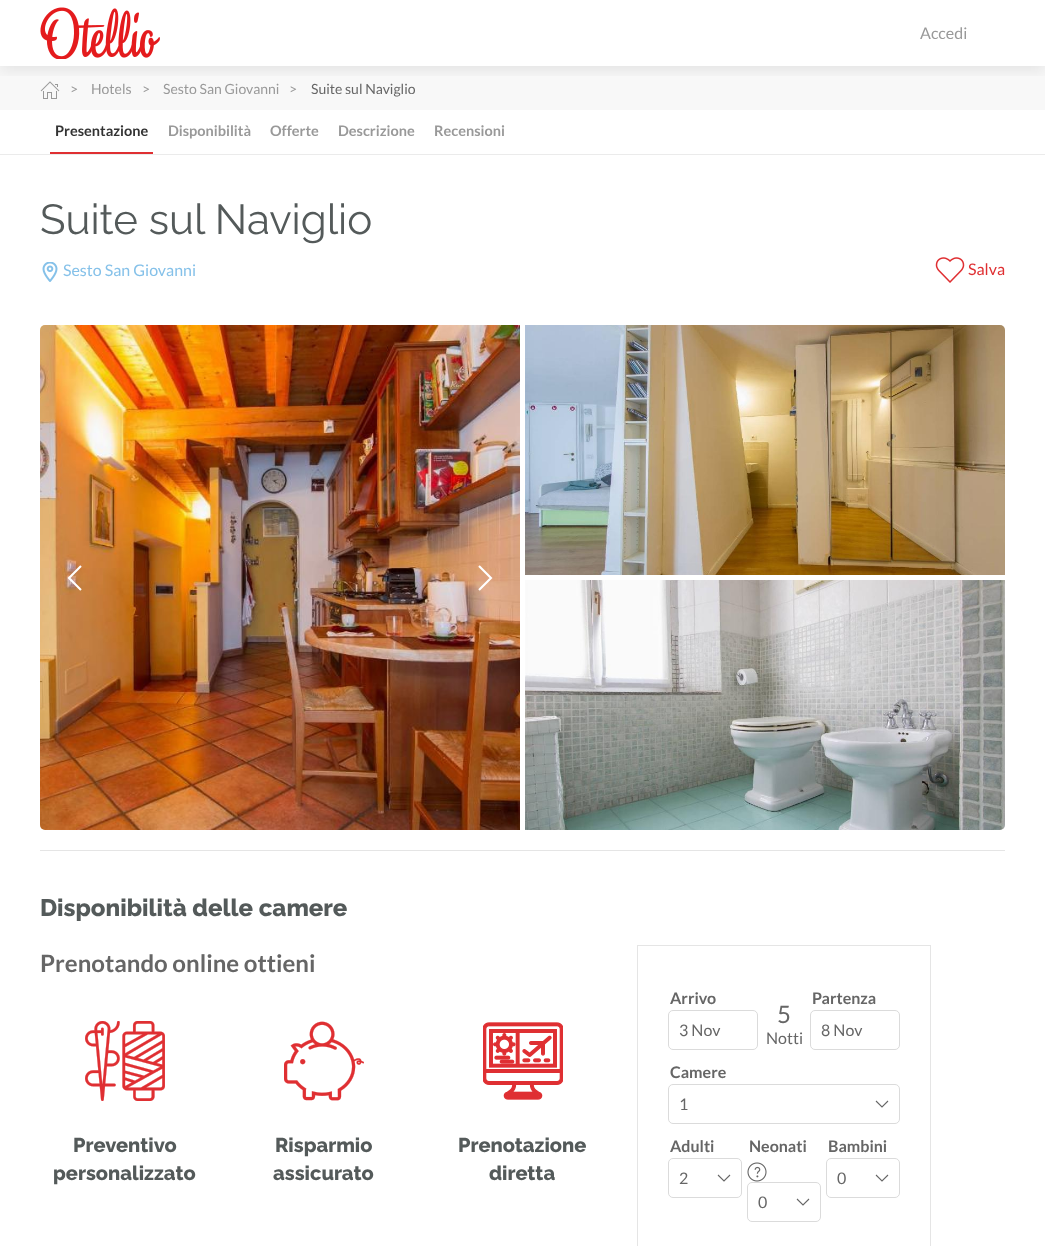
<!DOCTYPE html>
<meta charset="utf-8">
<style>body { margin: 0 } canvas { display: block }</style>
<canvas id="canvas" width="1045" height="1246"></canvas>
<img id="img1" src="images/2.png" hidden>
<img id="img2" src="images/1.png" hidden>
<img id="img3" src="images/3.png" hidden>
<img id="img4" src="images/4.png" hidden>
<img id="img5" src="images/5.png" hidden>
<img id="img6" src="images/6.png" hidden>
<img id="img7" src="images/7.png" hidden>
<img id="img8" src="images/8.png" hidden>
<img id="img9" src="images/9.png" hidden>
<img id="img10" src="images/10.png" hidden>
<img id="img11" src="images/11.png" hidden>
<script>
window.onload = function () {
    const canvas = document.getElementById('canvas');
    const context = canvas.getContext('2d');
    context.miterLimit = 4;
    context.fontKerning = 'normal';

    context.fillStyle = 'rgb(255, 255, 255)';
    context.fillRect(0, 0, 1045, 1246);
    context.fillStyle = 'rgb(248, 248, 248)';
    context.fillRect(0, 66, 1045, 44);
    context.drawImage(document.getElementById('img1'), 40, 81, 20, 18);
    context.save();
    context.beginPath();
    context.rect(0, 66, 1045, 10);
    context.clip();
    context.fillStyle = 'rgba(0, 0, 0, 0.08)';
    context.filter = 'blur(7.5px)';
    context.beginPath();
    context.rect(0, 5, 1045, 66);
    context.fill();
    context.filter = 'none';
    context.restore();
    context.drawImage(document.getElementById('img2'), 40, 7, 120, 52);
    context.fillStyle = 'rgb(235, 235, 235)';
    context.fillRect(0, 154, 1045, 1);
    context.fillStyle = 'rgb(223, 47, 50)';
    context.fillRect(50, 152, 103, 2);
    context.drawImage(document.getElementById('img3'), 42, 262, 16, 20);
    context.drawImage(document.getElementById('img4'), 935, 257, 30, 26);
    context.drawImage(document.getElementById('img5'), 40, 325, 480, 505);
    context.beginPath();
    context.moveTo(81, 590);
    context.lineTo(69, 578);
    context.lineTo(81, 566);
    context.strokeStyle = 'rgb(255, 255, 255)';
    context.lineWidth = 2.1;
    context.stroke();
    context.beginPath();
    context.moveTo(479, 566);
    context.lineTo(491, 578);
    context.lineTo(479, 590);
    context.stroke();
    context.drawImage(document.getElementById('img6'), 525, 325, 480, 250);
    context.drawImage(document.getElementById('img7'), 525, 580, 480, 250);
    context.fillStyle = 'rgb(229, 229, 229)';
    context.fillRect(40, 850, 965, 1);
    context.drawImage(document.getElementById('img8'), 85, 1021, 80, 80);
    context.drawImage(document.getElementById('img9'), 284, 1021, 80, 80);
    context.drawImage(document.getElementById('img10'), 483, 1022, 80, 78);
    context.fillStyle = 'rgba(0, 0, 0, 0.54)';
    context.filter = 'blur(0.5px)';
    context.beginPath();
    context.rect(0, 1216, 1045, 30);
    context.fill();
    context.filter = 'none';
    context.fillStyle = 'rgb(255, 255, 255)';
    context.fillRect(638, 1215, 292, 1);
    context.fillRect(0, 1216, 1045, 30);
    context.strokeStyle = 'rgb(229, 229, 229)';
    context.lineWidth = 1;
    context.strokeRect(637.5, 945.5, 293, 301);
    context.beginPath();
    context.roundRect(668.5, 1010.5, 89, 39, 4.5);
    context.strokeStyle = 'rgb(219, 219, 219)';
    context.stroke();
    context.beginPath();
    context.roundRect(810.5, 1010.5, 89, 39, 4.5);
    context.stroke();
    context.beginPath();
    context.moveTo(876, 1101);
    context.lineTo(882, 1107);
    context.lineTo(888, 1101);
    context.strokeStyle = 'rgb(102, 102, 102)';
    context.lineWidth = 1.1;
    context.stroke();
    context.beginPath();
    context.roundRect(668.5, 1084.5, 231, 39, 4.5);
    context.strokeStyle = 'rgb(219, 219, 219)';
    context.lineWidth = 1;
    context.stroke();
    context.beginPath();
    context.moveTo(718, 1175);
    context.lineTo(724, 1181);
    context.lineTo(730, 1175);
    context.strokeStyle = 'rgb(102, 102, 102)';
    context.lineWidth = 1.1;
    context.stroke();
    context.beginPath();
    context.roundRect(668.5, 1158.5, 73, 39, 4.5);
    context.strokeStyle = 'rgb(219, 219, 219)';
    context.lineWidth = 1;
    context.stroke();
    context.drawImage(document.getElementById('img11'), 747, 1162, 20, 20);
    context.beginPath();
    context.moveTo(797, 1199);
    context.lineTo(803, 1205);
    context.lineTo(809, 1199);
    context.strokeStyle = 'rgb(102, 102, 102)';
    context.lineWidth = 1.1;
    context.stroke();
    context.beginPath();
    context.roundRect(747.5, 1182.5, 73, 39, 4.5);
    context.strokeStyle = 'rgb(219, 219, 219)';
    context.lineWidth = 1;
    context.stroke();
    context.beginPath();
    context.moveTo(876, 1175);
    context.lineTo(882, 1181);
    context.lineTo(888, 1175);
    context.strokeStyle = 'rgb(102, 102, 102)';
    context.lineWidth = 1.1;
    context.stroke();
    context.beginPath();
    context.roundRect(826.5, 1158.5, 73, 39, 4.5);
    context.strokeStyle = 'rgb(219, 219, 219)';
    context.lineWidth = 1;
    context.stroke();
    context.font = '16px Lato';
    context.fillStyle = 'rgb(153, 153, 153)';
    context.fillText('Accedi', 920, 39);
    context.font = '14px Lato';
    context.fillText('>', 70, 94);
    context.fillText('Hotels', 91, 94);
    context.fillText('>', 142, 94);
    context.fillText('Sesto San Giovanni', 163, 94);
    context.fillText('>', 289, 94);
    context.fillStyle = 'rgb(102, 102, 102)';
    context.fillText('Suite sul Naviglio', 311, 94);
    context.font = 'bold 14.5px Lato';
    context.fillStyle = 'rgb(51, 51, 51)';
    context.fillText('Presentazione', 55, 136);
    context.fillStyle = 'rgb(153, 153, 153)';
    context.fillText('Disponibilità', 168, 136);
    context.fillText('Offerte', 270, 136);
    context.fillText('Descrizione', 338, 136);
    context.fillText('Recensioni', 434, 136);
    context.font = '100 42px Raleway';
    context.fillStyle = 'rgb(84, 90, 90)';
    context.fillText('Suite sul Naviglio', 40, 234);
    context.font = '16px Lato';
    context.fillStyle = 'rgb(133, 193, 233)';
    context.fillText('Sesto San Giovanni', 63, 276);
    context.fillStyle = 'rgb(223, 47, 50)';
    context.fillText('Salva', 968, 275);
    context.font = '100 24px "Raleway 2"';
    context.fillStyle = 'rgb(84, 90, 90)';
    context.fillText('Disponibilità delle camere', 40, 916);
    context.font = 'bold 24px Lato';
    context.fillStyle = 'rgb(102, 102, 102)';
    context.fillText('Prenotando online ottieni', 40, 972);
    context.font = '100 20px "Raleway 2"';
    context.fillStyle = 'rgb(84, 90, 90)';
    context.fillText('Preventivo', 73, 1152);
    context.fillText('personalizzato', 53, 1180);
    context.fillText('Risparmio', 275, 1152);
    context.fillText('assicurato', 273, 1180);
    context.fillText('Prenotazione', 458, 1152);
    context.fillText('diretta', 489, 1180);
    context.font = 'bold 16px Lato';
    context.fillStyle = 'rgb(102, 102, 102)';
    context.fillText('Arrivo', 670, 1004);
    context.font = '16px Lato';
    context.fillText('3 Nov', 679, 1036);
    context.font = '24px Lato';
    context.fillText('5', 777, 1023);
    context.font = '16px Lato';
    context.fillText('Notti', 766, 1044);
    context.font = 'bold 16px Lato';
    context.fillText('Partenza', 812, 1004);
    context.font = '16px Lato';
    context.fillText('8 Nov', 821, 1036);
    context.font = 'bold 16px Lato';
    context.fillText('Camere', 670, 1078);
    context.font = '16px Lato';
    context.fillText('1', 679, 1110);
    context.font = 'bold 16px Lato';
    context.fillText('Adulti', 670, 1152);
    context.font = '16px Lato';
    context.fillText('2', 679, 1184);
    context.font = 'bold 16px Lato';
    context.fillText('Neonati', 749, 1152);
    context.font = '16px Lato';
    context.fillText('0', 758, 1208);
    context.font = 'bold 16px Lato';
    context.fillText('Bambini', 828, 1152);
    context.font = '16px Lato';
    context.fillText('0', 837, 1184);
};
</script>
